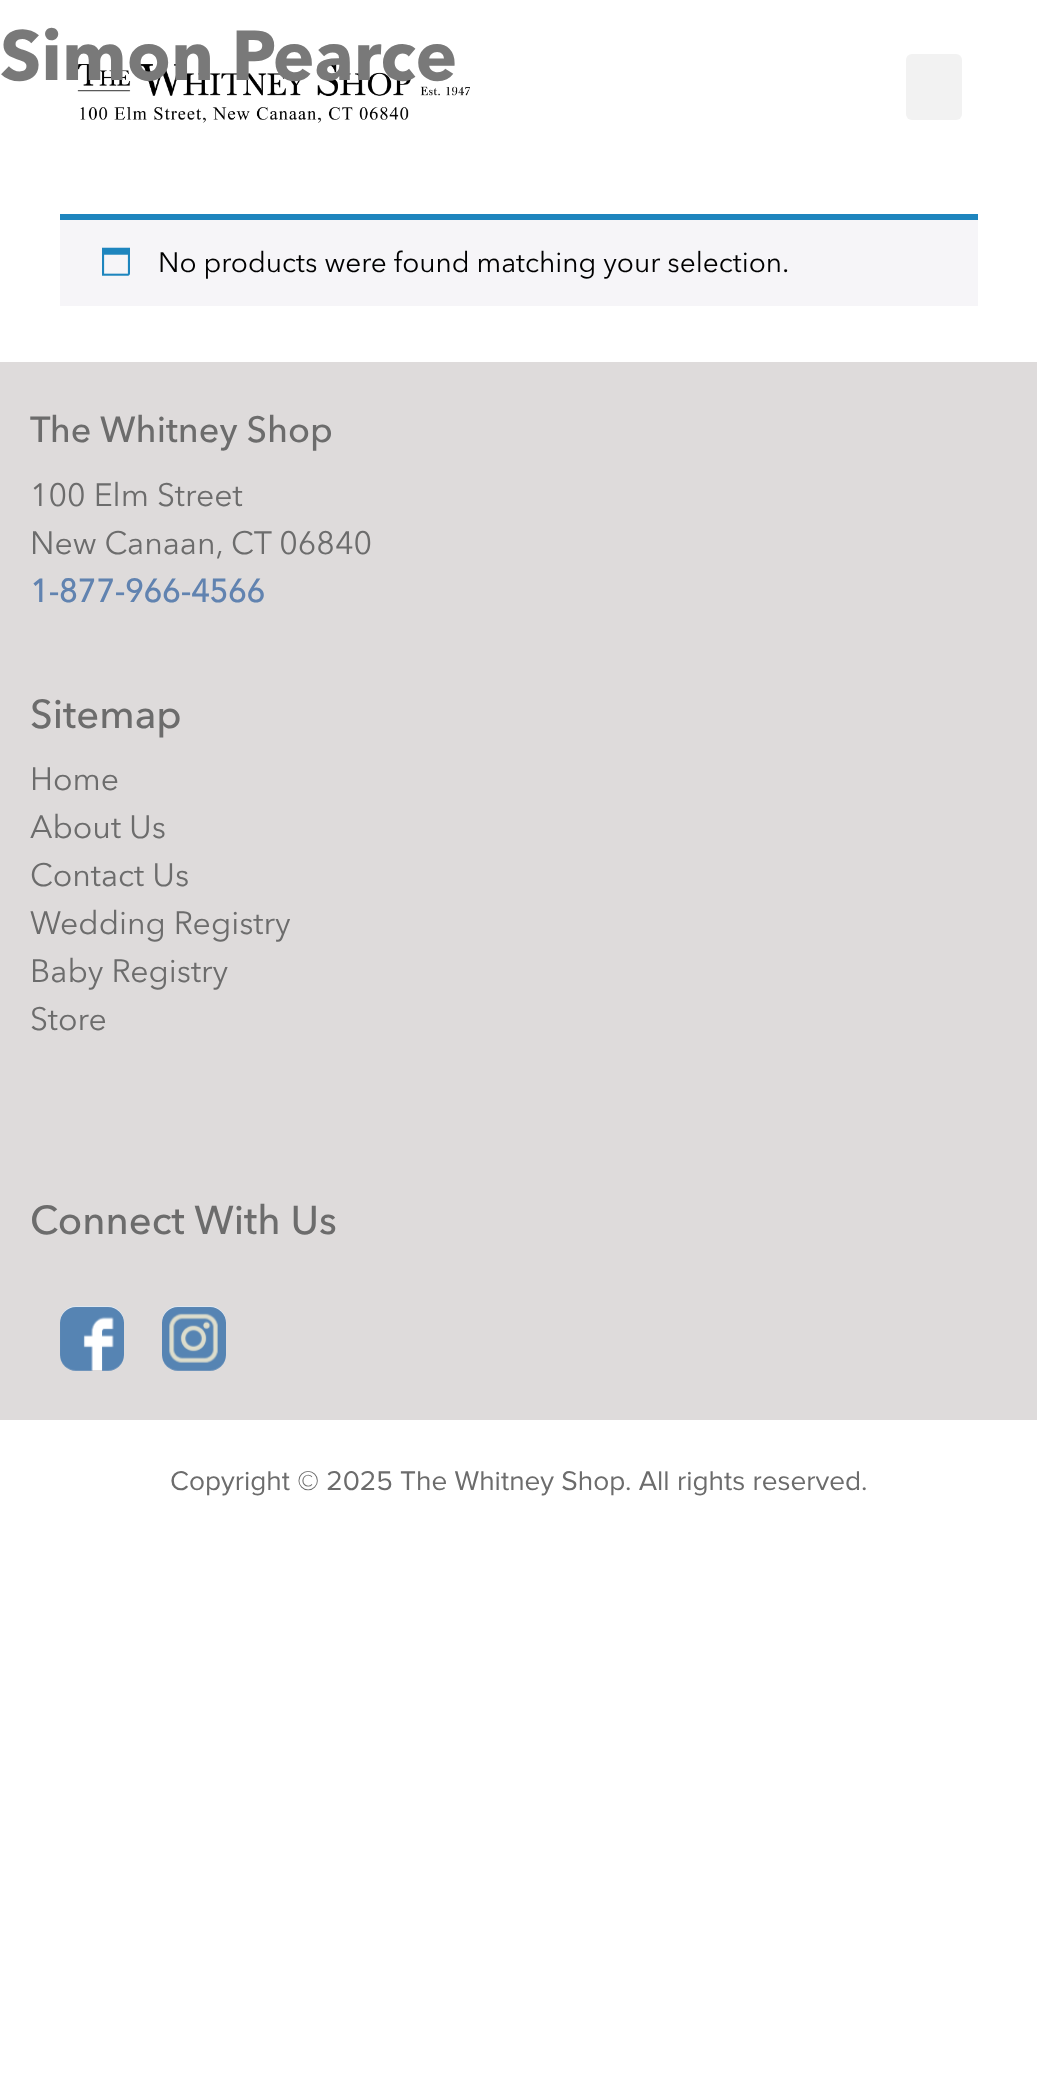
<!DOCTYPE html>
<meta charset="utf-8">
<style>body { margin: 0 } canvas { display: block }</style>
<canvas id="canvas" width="1037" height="2095"></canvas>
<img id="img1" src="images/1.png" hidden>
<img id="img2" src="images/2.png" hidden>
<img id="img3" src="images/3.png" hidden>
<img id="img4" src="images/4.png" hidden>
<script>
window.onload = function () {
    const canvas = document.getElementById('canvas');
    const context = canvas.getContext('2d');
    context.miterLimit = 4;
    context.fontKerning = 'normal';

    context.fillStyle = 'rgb(255, 255, 255)';
    context.fillRect(0, 0, 1037, 2095);
    context.fillStyle = 'rgb(246, 245, 248)';
    context.fillRect(60, 220, 918, 86);
    context.fillStyle = 'rgb(30, 133, 190)';
    context.fillRect(60, 214, 918, 6);
    context.drawImage(document.getElementById('img1'), 102, 247, 28, 29);
    context.drawImage(document.getElementById('img2'), 77, 63, 393, 60);
    context.fillStyle = 'rgb(242, 242, 242)';
    context.beginPath();
    context.roundRect(906, 54, 56, 66, 6);
    context.fill();
    context.fillStyle = 'rgb(222, 219, 219)';
    context.fillRect(0, 362, 1037, 1058);
    context.fillStyle = 'rgb(255, 255, 255)';
    context.beginPath();
    context.roundRect(60, 1306, 64, 64, 16);
    context.fill();
    context.drawImage(document.getElementById('img3'), 60, 1306, 64, 65);
    context.beginPath();
    context.roundRect(162, 1306, 64, 64, 16);
    context.fill();
    context.drawImage(document.getElementById('img4'), 162, 1306, 64, 65);
    context.font = 'bold 70px Avenir Next';
    context.fillStyle = 'rgb(121, 121, 121)';
    context.fillText('Simon Pearce', 0, 80);
    context.font = '28px Avenir Next';
    context.fillStyle = 'rgb(0, 0, 0)';
    context.fillText('No products were found matching your selection.', 158, 272);
    context.font = '500 36px Avenir Next';
    context.fillStyle = 'rgb(108, 108, 108)';
    context.fillText('The Whitney Shop', 30, 442);
    context.font = '32px Avenir Next';
    context.fillText('100 Elm Street', 30, 506);
    context.fillText('New Canaan, CT 06840', 30, 554);
    context.font = 'bold 32px "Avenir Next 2"';
    context.fillStyle = 'rgb(97, 131, 176)';
    context.fillText('1-877-966-4566', 30, 602);
    context.font = '500 40px Avenir Next';
    context.fillStyle = 'rgb(108, 108, 108)';
    context.fillText('Sitemap', 30, 728);
    context.font = '32px Avenir Next';
    context.fillText('Home', 30, 790);
    context.fillText('About Us', 30, 838);
    context.fillText('Contact Us', 30, 886);
    context.fillText('Wedding Registry', 30, 934);
    context.fillText('Baby Registry', 30, 982);
    context.fillText('Store', 30, 1030);
    context.font = '500 40px Avenir Next';
    context.fillText('Connect With Us', 30, 1234);
    context.font = '28px Proxima Nova';
    context.fillText('Copyright © 2025 The Whitney Shop. All rights reserved.', 170, 1490);
};
</script>
